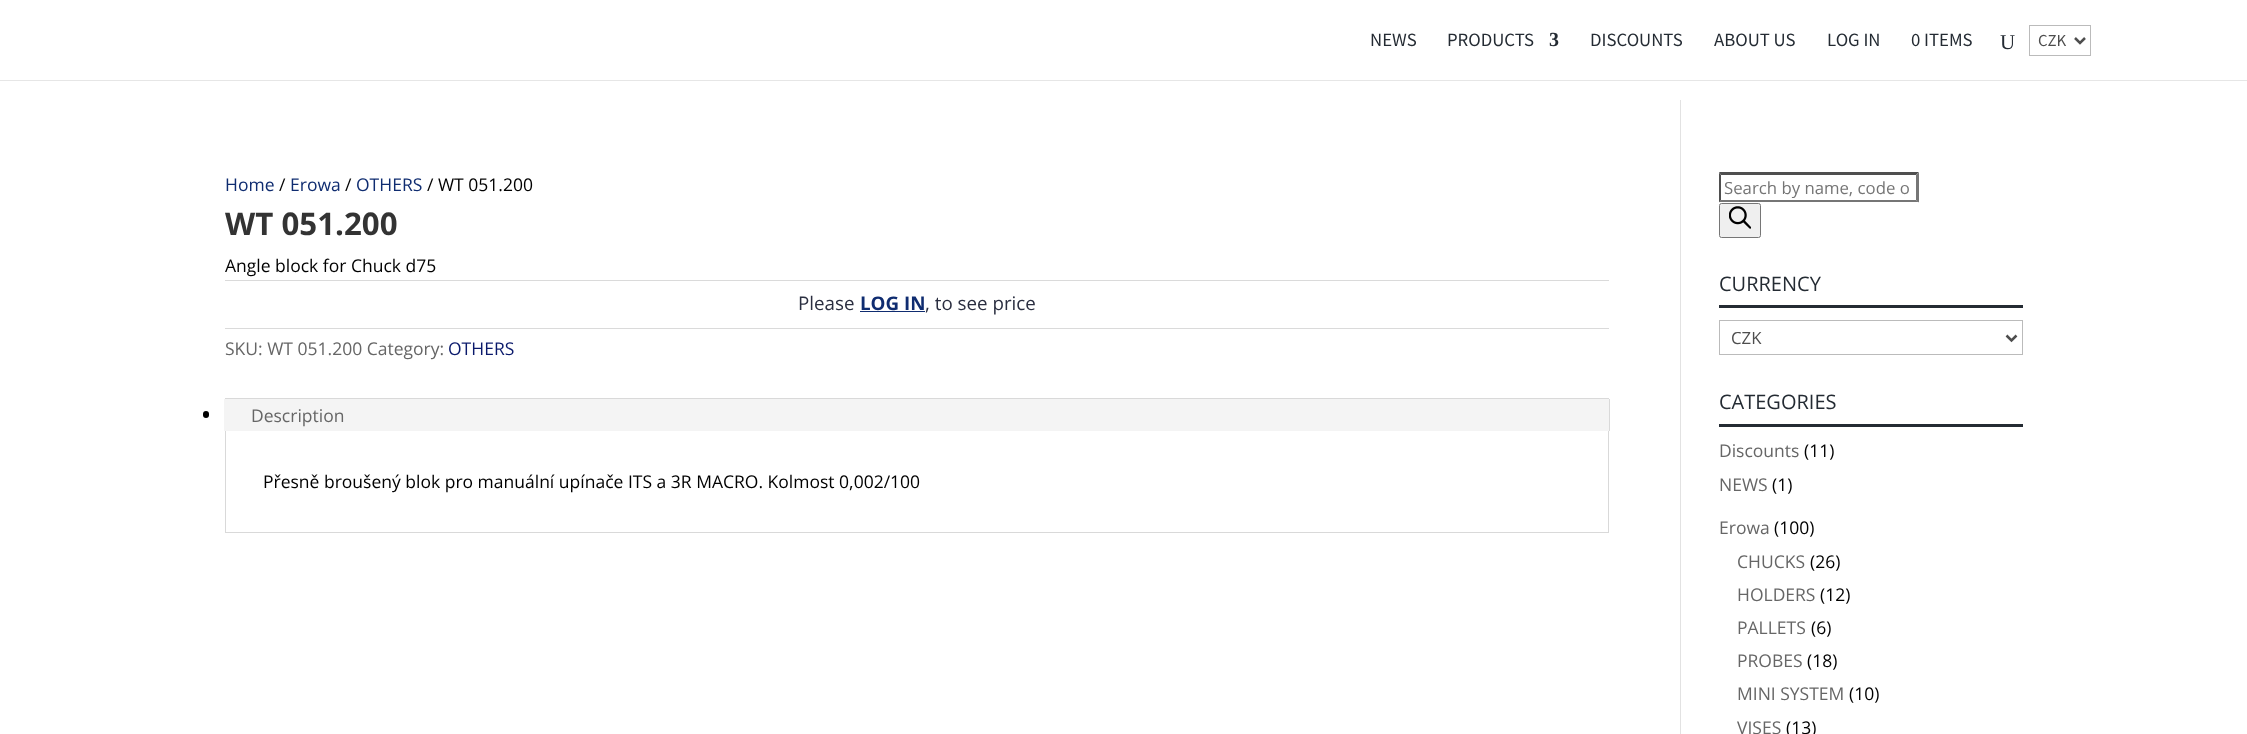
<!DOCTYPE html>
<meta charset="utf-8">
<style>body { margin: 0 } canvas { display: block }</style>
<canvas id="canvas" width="2247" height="734"></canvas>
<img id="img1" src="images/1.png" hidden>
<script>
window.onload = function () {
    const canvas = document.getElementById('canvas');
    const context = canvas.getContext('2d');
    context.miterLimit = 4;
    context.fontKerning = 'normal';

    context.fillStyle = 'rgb(255, 255, 255)';
    context.fillRect(0, 0, 2247, 734);
    context.fillStyle = 'rgb(230, 230, 230)';
    context.beginPath();
    context.moveTo(0, 80);
    context.lineTo(0, 81);
    context.lineTo(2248, 81);
    context.lineTo(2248, 1);
    context.lineTo(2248, 80);
    context.closePath();
    context.fill();
    context.strokeStyle = 'rgb(187, 187, 187)';
    context.strokeRect(2029.5, 25.5, 61, 30);
    context.beginPath();
    context.moveTo(2075, 38);
    context.lineTo(2080, 43);
    context.lineTo(2085, 38);
    context.strokeStyle = 'rgb(78, 78, 78)';
    context.lineWidth = 2.5;
    context.stroke();
    context.fillStyle = 'rgb(226, 226, 226)';
    context.fillRect(1680, 100, 1, 634);
    context.fillStyle = 'rgb(218, 218, 218)';
    context.fillRect(225, 280, 1384, 1);
    context.fillStyle = 'rgb(15, 44, 112)';
    context.fillRect(860, 311, 65, 1);
    context.fillStyle = 'rgb(218, 218, 218)';
    context.fillRect(225, 328, 1384, 1);
    context.strokeStyle = 'rgb(217, 217, 217)';
    context.lineWidth = 1;
    context.strokeRect(225.5, 398.5, 1383, 134);
    context.fillStyle = 'rgb(244, 244, 244)';
    context.fillRect(224, 399, 1385, 32);
    context.fillStyle = 'rgb(217, 217, 217)';
    context.fillRect(1609, 399, 1, 32);
    context.fillStyle = 'rgb(0, 0, 0)';
    context.beginPath();
    context.roundRect(203, 411, 6, 7, 3);
    context.fill();
    context.fillStyle = 'rgb(79, 79, 79)';
    context.beginPath();
    context.moveTo(1719, 172);
    context.lineTo(1919, 172);
    context.lineTo(1916, 175);
    context.lineTo(1721, 175);
    context.closePath();
    context.fill();
    context.fillStyle = 'rgb(118, 118, 118)';
    context.beginPath();
    context.moveTo(1919, 172.5);
    context.lineTo(1919, 202.5);
    context.lineTo(1916, 200);
    context.lineTo(1916, 175);
    context.closePath();
    context.fill();
    context.beginPath();
    context.moveTo(1919, 202);
    context.lineTo(1719, 202);
    context.lineTo(1721, 200);
    context.lineTo(1916, 200);
    context.closePath();
    context.fill();
    context.fillStyle = 'rgb(79, 79, 79)';
    context.beginPath();
    context.moveTo(1719, 202.5);
    context.lineTo(1719, 172.5);
    context.lineTo(1721, 175);
    context.lineTo(1721, 200);
    context.closePath();
    context.fill();
    context.fillStyle = 'rgb(239, 239, 239)';
    context.beginPath();
    context.roundRect(1719.5, 203.5, 41, 34, 2);
    context.fill();
    context.strokeStyle = 'rgb(118, 118, 118)';
    context.stroke();
    context.drawImage(document.getElementById('img1'), 1729, 206, 22, 23);
    context.fillStyle = 'rgb(36, 43, 51)';
    context.fillRect(1719, 305, 304, 3);
    context.strokeStyle = 'rgb(187, 187, 187)';
    context.strokeRect(1719.5, 320.5, 303, 34);
    context.beginPath();
    context.moveTo(2006.5, 335.5);
    context.lineTo(2011.5, 340.5);
    context.lineTo(2016.5, 335.5);
    context.strokeStyle = 'rgb(78, 78, 78)';
    context.lineWidth = 2.5;
    context.stroke();
    context.fillRect(1719, 424, 304, 3);
    context.font = '18.75px Source Sans Pro';
    context.fillText('NEWS', 1370, 46);
    context.fillText('PRODUCTS', 1447, 46);
    context.font = 'bold 20px Liberation Serif';
    context.fillText('3', 1549, 46);
    context.font = '18.75px Source Sans Pro';
    context.fillText('DISCOUNTS', 1590, 46);
    context.fillText('ABOUT US', 1714, 46);
    context.fillText('LOG IN', 1827, 46);
    context.fillText('0 ITEMS', 1911, 46);
    context.font = '21px Liberation Serif';
    context.fillText('U', 2000, 49);
    context.font = '16.75px Source Sans Pro';
    context.fillStyle = 'rgb(78, 78, 78)';
    context.fillText('CZK', 2038, 46);
    context.font = '17.5px Open Sans';
    context.fillStyle = 'rgb(15, 44, 112)';
    context.fillText('Home', 225, 191);
    context.fillStyle = 'rgb(0, 0, 0)';
    context.fillText('/', 279, 191);
    context.fillStyle = 'rgb(15, 44, 112)';
    context.fillText('Erowa', 290, 191);
    context.fillStyle = 'rgb(0, 0, 0)';
    context.fillText('/', 345, 191);
    context.fillStyle = 'rgb(15, 44, 112)';
    context.fillText('OTHERS', 356, 191);
    context.fillStyle = 'rgb(0, 0, 0)';
    context.fillText('/ WT 051.200', 427, 191);
    context.font = 'bold 31.25px Open Sans';
    context.fillStyle = 'rgb(51, 51, 51)';
    context.fillText('WT 051.200', 225, 235);
    context.font = '17.5px Open Sans';
    context.fillStyle = 'rgb(0, 0, 0)';
    context.fillText('Angle block for Chuck d75', 225, 272);
    context.font = '18.75px Open Sans';
    context.fillStyle = 'rgb(42, 46, 64)';
    context.fillText('Please', 798, 310);
    context.font = 'bold 18.75px Open Sans';
    context.fillStyle = 'rgb(15, 44, 112)';
    context.fillText('LOG IN', 860, 310);
    context.font = '18.75px Open Sans';
    context.fillStyle = 'rgb(42, 46, 64)';
    context.fillText(', to see price', 925, 310);
    context.font = '17.5px Open Sans';
    context.fillStyle = 'rgb(102, 102, 102)';
    context.fillText('SKU: WT 051.200 Category:', 225, 355);
    context.fillStyle = 'rgb(10, 25, 107)';
    context.fillText('OTHERS', 448, 355);
    context.fillStyle = 'rgb(102, 102, 102)';
    context.fillText('Description', 251, 422);
    context.fillStyle = 'rgb(0, 0, 0)';
    context.fillText('Přesně broušený blok pro manuální upínače ITS a 3R MACRO. Kolmost 0,002/100', 263, 488);
    context.font = '16.75px Open Sans';
    context.fillStyle = 'rgb(117, 117, 117)';
    context.fillText('Search by name, code o', 1724, 194);
    context.font = '20px Open Sans';
    context.fillStyle = 'rgb(36, 43, 51)';
    context.fillText('CURRENCY', 1719, 291);
    context.font = '16.75px Open Sans';
    context.fillStyle = 'rgb(78, 78, 78)';
    context.fillText('CZK', 1731, 344);
    context.font = '20px Open Sans';
    context.fillStyle = 'rgb(36, 43, 51)';
    context.fillText('CATEGORIES', 1719, 409);
    context.font = '17.5px Open Sans';
    context.fillStyle = 'rgb(102, 102, 102)';
    context.fillText('Discounts', 1719, 457);
    context.fillStyle = 'rgb(0, 0, 0)';
    context.fillText('(11)', 1804, 457);
    context.fillStyle = 'rgb(102, 102, 102)';
    context.fillText('NEWS', 1719, 491);
    context.fillStyle = 'rgb(0, 0, 0)';
    context.fillText('(1)', 1772, 491);
    context.fillStyle = 'rgb(102, 102, 102)';
    context.fillText('Erowa', 1719, 534);
    context.fillStyle = 'rgb(0, 0, 0)';
    context.fillText('(100)', 1774, 534);
    context.fillStyle = 'rgb(102, 102, 102)';
    context.fillText('CHUCKS', 1737, 568);
    context.fillStyle = 'rgb(0, 0, 0)';
    context.fillText('(26)', 1810, 568);
    context.fillStyle = 'rgb(102, 102, 102)';
    context.fillText('HOLDERS', 1737, 601);
    context.fillStyle = 'rgb(0, 0, 0)';
    context.fillText('(12)', 1820, 601);
    context.fillStyle = 'rgb(102, 102, 102)';
    context.fillText('PALLETS', 1737, 634);
    context.fillStyle = 'rgb(0, 0, 0)';
    context.fillText('(6)', 1811, 634);
    context.fillStyle = 'rgb(102, 102, 102)';
    context.fillText('PROBES', 1737, 667);
    context.fillStyle = 'rgb(0, 0, 0)';
    context.fillText('(18)', 1807, 667);
    context.fillStyle = 'rgb(102, 102, 102)';
    context.fillText('MINI SYSTEM', 1737, 700);
    context.fillStyle = 'rgb(0, 0, 0)';
    context.fillText('(10)', 1849, 700);
    context.fillStyle = 'rgb(102, 102, 102)';
    context.fillText('VISES', 1737, 734);
    context.fillStyle = 'rgb(0, 0, 0)';
    context.fillText('(13)', 1786, 734);
};
</script>
